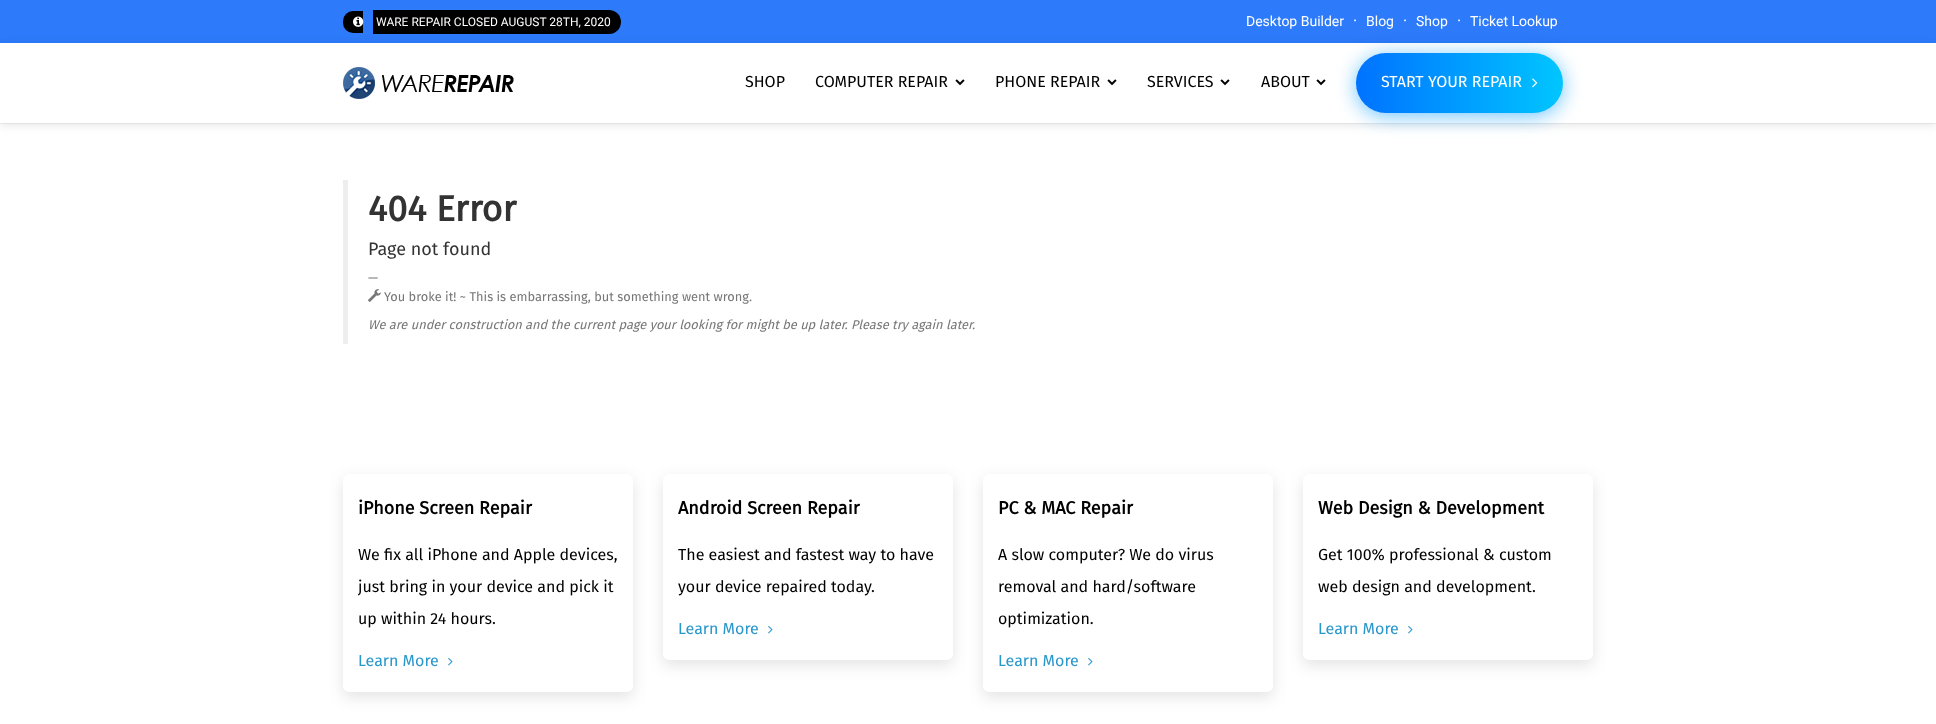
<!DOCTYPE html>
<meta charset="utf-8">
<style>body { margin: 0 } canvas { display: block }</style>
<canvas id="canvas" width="1936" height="724"></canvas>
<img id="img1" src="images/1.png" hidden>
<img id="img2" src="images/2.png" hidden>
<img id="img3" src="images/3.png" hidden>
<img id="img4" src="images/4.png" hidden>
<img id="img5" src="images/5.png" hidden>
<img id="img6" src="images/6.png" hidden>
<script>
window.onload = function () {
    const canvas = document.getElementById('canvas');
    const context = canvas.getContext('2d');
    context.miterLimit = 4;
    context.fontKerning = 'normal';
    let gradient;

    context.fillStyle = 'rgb(255, 255, 255)';
    context.fillRect(0, 0, 1936, 724);
    context.fillStyle = 'rgb(45, 122, 250)';
    context.fillRect(0, 0, 1936, 43);
    context.fillStyle = 'rgb(0, 0, 0)';
    context.beginPath();
    context.roundRect(343, 11, 20, 22, [10, 0, 0, 10]);
    context.fill();
    context.beginPath();
    context.roundRect(373, 10, 248, 24, [0, 12, 12, 0]);
    context.fill();
    context.drawImage(document.getElementById('img1'), 353, 16, 11, 11);
    context.save();
    context.beginPath();
    context.moveTo(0, 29);
    context.lineTo(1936, 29);
    context.lineTo(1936, 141);
    context.lineTo(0, 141);
    context.closePath();
    context.moveTo(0, 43);
    context.lineTo(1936, 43);
    context.lineTo(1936, 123);
    context.lineTo(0, 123);
    context.closePath();
    context.clip('evenodd');
    context.fillStyle = 'rgba(0, 0, 0, 0.1)';
    context.filter = 'blur(5px)';
    context.beginPath();
    context.rect(0, 45, 1936, 80);
    context.fill();
    context.filter = 'none';
    context.restore();
    context.fillStyle = 'rgba(0, 0, 0, 0.05)';
    context.fillRect(0, 123, 1936, 1);
    context.drawImage(document.getElementById('img2'), 343, 67, 171, 32);
    context.drawImage(document.getElementById('img3'), 955, 79, 10, 7);
    context.drawImage(document.getElementById('img3'), 1107, 79, 10, 7);
    context.drawImage(document.getElementById('img3'), 1220, 79, 10, 7);
    context.drawImage(document.getElementById('img3'), 1316, 79, 10, 7);
    context.fillStyle = 'rgba(0, 153, 255, 0.57)';
    context.filter = 'blur(10px)';
    context.beginPath();
    context.roundRect(1356, 56, 207, 60, 30);
    context.fill();
    context.filter = 'none';
    gradient = context.createLinearGradient(1356, 83, 1563, 83);
    gradient.addColorStop(0, 'rgb(0, 114, 255)');
    gradient.addColorStop(1, 'rgb(0, 198, 255)');
    context.fillStyle = gradient;
    context.beginPath();
    context.roundRect(1356, 53, 207, 60, 30);
    context.fill();
    context.drawImage(document.getElementById('img4'), 1532, 78, 6, 10);
    context.fillStyle = 'rgb(238, 238, 238)';
    context.fillRect(343, 180, 5, 164);
    context.drawImage(document.getElementById('img5'), 368, 289, 13, 13);
    context.fillStyle = 'rgba(0, 0, 0, 0.11)';
    context.filter = 'blur(7.5px)';
    context.beginPath();
    context.roundRect(343, 479, 290, 218, 6);
    context.fill();
    context.filter = 'none';
    context.fillStyle = 'rgb(255, 255, 255)';
    context.beginPath();
    context.roundRect(343, 474, 290, 218, 6);
    context.fill();
    context.drawImage(document.getElementById('img6'), 448, 657, 5, 9);
    context.fillStyle = 'rgba(0, 0, 0, 0.11)';
    context.filter = 'blur(7.5px)';
    context.beginPath();
    context.roundRect(663, 479, 290, 186, 6);
    context.fill();
    context.filter = 'none';
    context.fillStyle = 'rgb(255, 255, 255)';
    context.beginPath();
    context.roundRect(663, 474, 290, 186, 6);
    context.fill();
    context.drawImage(document.getElementById('img6'), 768, 625, 5, 9);
    context.fillStyle = 'rgba(0, 0, 0, 0.11)';
    context.filter = 'blur(7.5px)';
    context.beginPath();
    context.roundRect(983, 479, 290, 218, 6);
    context.fill();
    context.filter = 'none';
    context.fillStyle = 'rgb(255, 255, 255)';
    context.beginPath();
    context.roundRect(983, 474, 290, 218, 6);
    context.fill();
    context.drawImage(document.getElementById('img6'), 1088, 657, 5, 9);
    context.fillStyle = 'rgba(0, 0, 0, 0.11)';
    context.filter = 'blur(7.5px)';
    context.beginPath();
    context.roundRect(1303, 479, 290, 186, 6);
    context.fill();
    context.filter = 'none';
    context.fillStyle = 'rgb(255, 255, 255)';
    context.beginPath();
    context.roundRect(1303, 474, 290, 186, 6);
    context.fill();
    context.drawImage(document.getElementById('img6'), 1408, 625, 5, 9);
    context.font = '12px Roboto';
    context.fillText('WARE REPAIR CLOSED AUGUST 28TH, 2020', 376, 26);
    context.font = '14px Roboto';
    context.fillText('Desktop Builder', 1246, 26);
    context.font = '16px Roboto';
    context.fillText('·', 1353, 26);
    context.font = '14px Roboto';
    context.fillText('Blog', 1366, 26);
    context.font = '16px Roboto';
    context.fillText('·', 1403, 26);
    context.font = '14px Roboto';
    context.fillText('Shop', 1416, 26);
    context.font = '16px Roboto';
    context.fillText('·', 1457, 26);
    context.font = '14px Roboto';
    context.fillText('Ticket Lookup', 1470, 26);
    context.font = '16px Fira Sans';
    context.fillStyle = 'rgb(0, 0, 0)';
    context.fillText('SHOP', 745, 87);
    context.fillText('COMPUTER REPAIR', 815, 87);
    context.fillText('PHONE REPAIR', 995, 87);
    context.fillText('SERVICES', 1147, 87);
    context.fillText('ABOUT', 1261, 87);
    context.fillStyle = 'rgb(255, 255, 255)';
    context.fillText('START YOUR REPAIR', 1381, 87);
    context.font = 'bold 36px Fira Sans';
    context.fillStyle = 'rgb(51, 51, 51)';
    context.fillText('404 Error', 368, 221);
    context.font = '18px Fira Sans';
    context.fillText('Page not found', 368, 255);
    context.font = '12.8px Fira Sans';
    context.fillStyle = 'rgb(119, 119, 119)';
    context.fillText('—', 368, 282);
    context.fillText('You broke it! ~ This is embarrassing, but something went wrong.', 384, 301);
    context.font = 'italic 12.8px Fira Sans';
    context.fillText('We are under construction and the current page your looking for might be up later. Please try again later.', 368, 329);
    context.font = 'bold 18px Fira Sans';
    context.fillStyle = 'rgb(0, 0, 0)';
    context.fillText('iPhone Screen Repair', 358, 514);
    context.font = '16px Fira Sans';
    context.fillText('We fix all iPhone and Apple devices,', 358, 560);
    context.fillText('just bring in your device and pick it', 358, 592);
    context.fillText('up within 24 hours.', 358, 624);
    context.fillStyle = 'rgb(41, 150, 204)';
    context.fillText('Learn More', 358, 666);
    context.font = 'bold 18px Fira Sans';
    context.fillStyle = 'rgb(0, 0, 0)';
    context.fillText('Android Screen Repair', 678, 514);
    context.font = '16px Fira Sans';
    context.fillText('The easiest and fastest way to have', 678, 560);
    context.fillText('your device repaired today.', 678, 592);
    context.fillStyle = 'rgb(41, 150, 204)';
    context.fillText('Learn More', 678, 634);
    context.font = 'bold 18px Fira Sans';
    context.fillStyle = 'rgb(0, 0, 0)';
    context.fillText('PC & MAC Repair', 998, 514);
    context.font = '16px Fira Sans';
    context.fillText('A slow computer? We do virus', 998, 560);
    context.fillText('removal and hard/software', 998, 592);
    context.fillText('optimization.', 998, 624);
    context.fillStyle = 'rgb(41, 150, 204)';
    context.fillText('Learn More', 998, 666);
    context.font = 'bold 18px Fira Sans';
    context.fillStyle = 'rgb(0, 0, 0)';
    context.fillText('Web Design & Development', 1318, 514);
    context.font = '16px Fira Sans';
    context.fillText('Get 100% professional & custom', 1318, 560);
    context.fillText('web design and development.', 1318, 592);
    context.fillStyle = 'rgb(41, 150, 204)';
    context.fillText('Learn More', 1318, 634);
};
</script>
